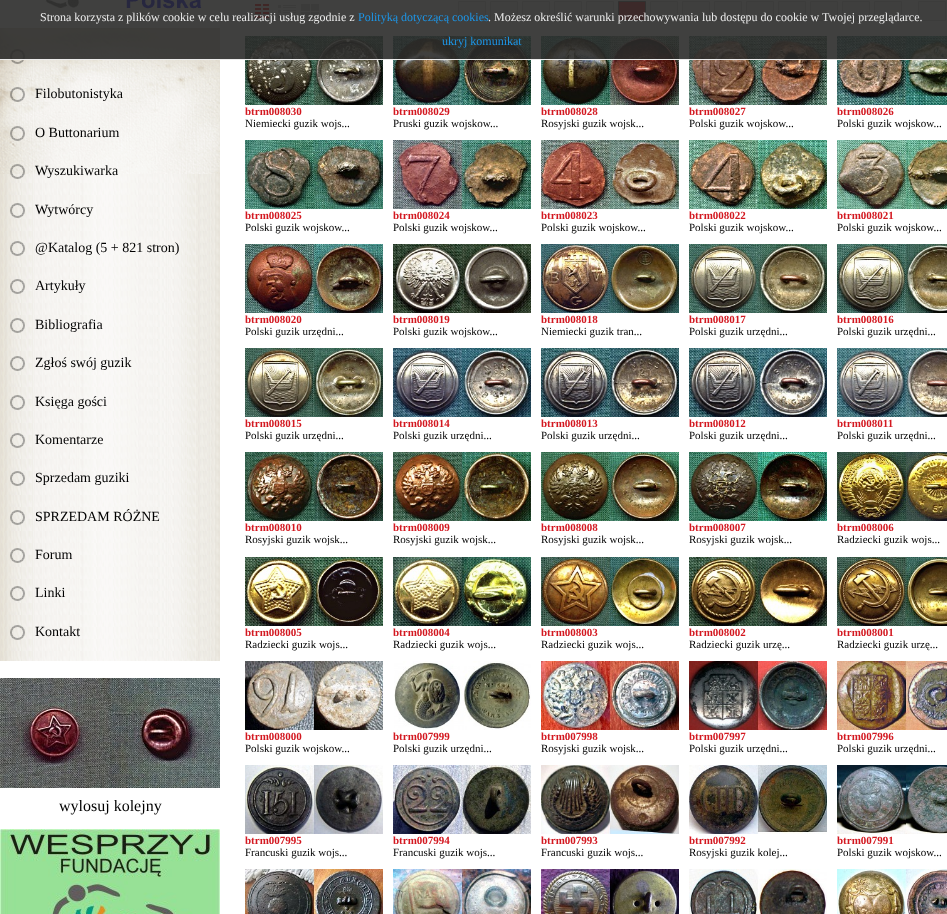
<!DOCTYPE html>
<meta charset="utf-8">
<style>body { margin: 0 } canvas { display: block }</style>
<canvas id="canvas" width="947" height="914"></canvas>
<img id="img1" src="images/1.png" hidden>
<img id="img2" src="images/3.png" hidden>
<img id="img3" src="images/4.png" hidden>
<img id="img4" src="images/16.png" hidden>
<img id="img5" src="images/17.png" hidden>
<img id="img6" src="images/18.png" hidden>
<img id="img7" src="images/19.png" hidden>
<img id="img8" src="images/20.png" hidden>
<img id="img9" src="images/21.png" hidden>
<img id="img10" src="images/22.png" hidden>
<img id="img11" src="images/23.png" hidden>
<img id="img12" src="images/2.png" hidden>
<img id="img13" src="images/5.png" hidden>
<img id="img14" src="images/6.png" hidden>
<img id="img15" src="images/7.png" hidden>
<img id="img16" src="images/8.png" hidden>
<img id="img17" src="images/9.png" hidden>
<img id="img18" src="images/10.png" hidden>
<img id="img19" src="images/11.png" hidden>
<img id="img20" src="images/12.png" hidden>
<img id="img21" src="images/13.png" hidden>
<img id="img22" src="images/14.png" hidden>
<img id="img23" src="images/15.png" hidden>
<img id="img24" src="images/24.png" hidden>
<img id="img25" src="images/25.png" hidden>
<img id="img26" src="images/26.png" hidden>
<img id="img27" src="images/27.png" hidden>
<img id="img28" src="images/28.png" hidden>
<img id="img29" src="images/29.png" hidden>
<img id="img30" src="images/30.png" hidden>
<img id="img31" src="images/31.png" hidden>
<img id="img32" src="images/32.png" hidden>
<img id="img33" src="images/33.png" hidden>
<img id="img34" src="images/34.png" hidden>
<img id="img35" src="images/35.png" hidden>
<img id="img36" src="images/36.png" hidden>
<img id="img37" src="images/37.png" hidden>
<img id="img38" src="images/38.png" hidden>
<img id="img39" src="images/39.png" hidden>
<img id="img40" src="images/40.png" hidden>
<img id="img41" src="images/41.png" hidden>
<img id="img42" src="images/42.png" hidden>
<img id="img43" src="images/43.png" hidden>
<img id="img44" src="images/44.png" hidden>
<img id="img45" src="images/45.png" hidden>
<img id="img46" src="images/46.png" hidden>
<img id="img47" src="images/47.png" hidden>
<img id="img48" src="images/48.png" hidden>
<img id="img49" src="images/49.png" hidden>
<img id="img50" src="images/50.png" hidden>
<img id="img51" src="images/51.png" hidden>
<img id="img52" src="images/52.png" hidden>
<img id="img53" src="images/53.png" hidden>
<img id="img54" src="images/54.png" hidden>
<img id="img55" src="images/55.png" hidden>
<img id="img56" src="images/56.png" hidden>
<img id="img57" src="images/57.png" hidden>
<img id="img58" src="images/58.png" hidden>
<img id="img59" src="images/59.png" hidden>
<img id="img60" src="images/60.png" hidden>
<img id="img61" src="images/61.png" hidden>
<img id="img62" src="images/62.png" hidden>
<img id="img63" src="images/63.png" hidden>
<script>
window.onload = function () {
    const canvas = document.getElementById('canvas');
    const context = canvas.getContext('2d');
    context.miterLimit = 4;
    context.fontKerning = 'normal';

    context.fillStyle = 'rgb(255, 255, 255)';
    context.fillRect(0, 0, 947, 914);
    context.drawImage(document.getElementById('img1'), 45, 0, 157, 9);
    context.drawImage(document.getElementById('img2'), 0, 27, 220, 147);
    context.drawImage(document.getElementById('img3'), 10, 49, 15, 15);
    context.fillStyle = 'rgb(255, 0, 0)';
    context.fillRect(255, 4, 14, 14);
    context.drawImage(document.getElementById('img4'), 255, 4, 18, 14);
    context.fillStyle = 'rgb(204, 204, 204)';
    context.fillRect(278, 5, 18, 13);
    context.drawImage(document.getElementById('img5'), 278, 4, 18, 14);
    context.fillRect(301, 4, 18, 14);
    context.drawImage(document.getElementById('img6'), 301, 4, 18, 14);
    context.fillStyle = 'rgb(241, 239, 239)';
    context.beginPath();
    context.rect(458.5, 1.5, 27, 19);
    context.fill();
    context.strokeStyle = 'rgb(213, 211, 211)';
    context.stroke();
    context.beginPath();
    context.rect(490.5, 1.5, 27, 19);
    context.fill();
    context.stroke();
    context.beginPath();
    context.rect(522.5, 1.5, 27, 19);
    context.fill();
    context.stroke();
    context.beginPath();
    context.rect(554.5, 1.5, 27, 19);
    context.fill();
    context.stroke();
    context.beginPath();
    context.rect(586.5, 1.5, 27, 19);
    context.fill();
    context.stroke();
    context.fillStyle = 'rgb(211, 24, 32)';
    context.beginPath();
    context.rect(618.5, 1.5, 27, 19);
    context.fill();
    context.strokeStyle = 'rgb(102, 102, 102)';
    context.stroke();
    context.fillStyle = 'rgb(241, 239, 239)';
    context.beginPath();
    context.rect(650.5, 1.5, 27, 19);
    context.fill();
    context.strokeStyle = 'rgb(213, 211, 211)';
    context.stroke();
    context.beginPath();
    context.rect(682.5, 1.5, 27, 19);
    context.fill();
    context.stroke();
    context.beginPath();
    context.rect(714.5, 1.5, 27, 19);
    context.fill();
    context.stroke();
    context.beginPath();
    context.rect(746.5, 1.5, 27, 19);
    context.fill();
    context.stroke();
    context.beginPath();
    context.rect(778.5, 1.5, 27, 19);
    context.fill();
    context.stroke();
    context.beginPath();
    context.rect(810.5, 1.5, 27, 19);
    context.fill();
    context.stroke();
    context.beginPath();
    context.rect(842.5, 1.5, 27, 19);
    context.fill();
    context.stroke();
    context.beginPath();
    context.rect(874.5, 1.5, 27, 19);
    context.fill();
    context.stroke();
    context.beginPath();
    context.rect(918.5, 1.5, 27, 19);
    context.fill();
    context.stroke();
    context.drawImage(document.getElementById('img7'), 245, 36, 138, 69);
    context.drawImage(document.getElementById('img8'), 393, 36, 138, 69);
    context.drawImage(document.getElementById('img9'), 541, 36, 138, 69);
    context.drawImage(document.getElementById('img10'), 689, 36, 138, 69);
    context.drawImage(document.getElementById('img11'), 837, 36, 110, 69);
    context.fillStyle = 'rgba(43, 43, 42, 0.9)';
    context.fillRect(0, 0, 947, 60);
    context.fillStyle = 'rgba(255, 255, 255, 0.9)';
    context.fillRect(0, 59, 947, 1);
    context.drawImage(document.getElementById('img12'), 0, 174, 220, 487);
    context.drawImage(document.getElementById('img13'), 10, 87, 15, 15);
    context.drawImage(document.getElementById('img14'), 10, 126, 15, 15);
    context.drawImage(document.getElementById('img15'), 10, 164, 15, 15);
    context.drawImage(document.getElementById('img16'), 10, 203, 15, 15);
    context.drawImage(document.getElementById('img17'), 10, 241, 15, 15);
    context.drawImage(document.getElementById('img18'), 10, 279, 15, 15);
    context.drawImage(document.getElementById('img19'), 10, 318, 15, 15);
    context.drawImage(document.getElementById('img20'), 10, 356, 15, 15);
    context.drawImage(document.getElementById('img16'), 10, 395, 15, 15);
    context.drawImage(document.getElementById('img17'), 10, 433, 15, 15);
    context.drawImage(document.getElementById('img18'), 10, 471, 15, 15);
    context.drawImage(document.getElementById('img19'), 10, 510, 15, 15);
    context.drawImage(document.getElementById('img20'), 10, 548, 15, 15);
    context.drawImage(document.getElementById('img21'), 10, 586, 15, 15);
    context.drawImage(document.getElementById('img17'), 10, 625, 15, 15);
    context.drawImage(document.getElementById('img22'), 0, 678, 220, 110);
    context.drawImage(document.getElementById('img23'), 0, 829, 220, 85);
    context.drawImage(document.getElementById('img24'), 245, 140, 138, 69);
    context.drawImage(document.getElementById('img25'), 393, 140, 138, 69);
    context.drawImage(document.getElementById('img26'), 541, 140, 138, 69);
    context.drawImage(document.getElementById('img27'), 689, 140, 138, 69);
    context.drawImage(document.getElementById('img28'), 837, 140, 110, 69);
    context.drawImage(document.getElementById('img29'), 245, 244, 138, 69);
    context.drawImage(document.getElementById('img30'), 393, 244, 138, 69);
    context.drawImage(document.getElementById('img31'), 541, 244, 138, 69);
    context.drawImage(document.getElementById('img32'), 689, 244, 138, 69);
    context.drawImage(document.getElementById('img33'), 837, 244, 110, 69);
    context.drawImage(document.getElementById('img34'), 245, 348, 138, 69);
    context.drawImage(document.getElementById('img35'), 393, 348, 138, 69);
    context.drawImage(document.getElementById('img36'), 541, 348, 138, 69);
    context.drawImage(document.getElementById('img37'), 689, 348, 138, 69);
    context.drawImage(document.getElementById('img38'), 837, 348, 110, 69);
    context.drawImage(document.getElementById('img39'), 245, 452, 138, 69);
    context.drawImage(document.getElementById('img40'), 393, 452, 138, 69);
    context.drawImage(document.getElementById('img41'), 541, 452, 138, 69);
    context.drawImage(document.getElementById('img42'), 689, 452, 138, 69);
    context.drawImage(document.getElementById('img43'), 837, 452, 110, 69);
    context.drawImage(document.getElementById('img44'), 245, 557, 138, 69);
    context.drawImage(document.getElementById('img45'), 393, 557, 138, 69);
    context.drawImage(document.getElementById('img46'), 541, 557, 138, 69);
    context.drawImage(document.getElementById('img47'), 689, 557, 138, 69);
    context.drawImage(document.getElementById('img48'), 837, 557, 110, 69);
    context.drawImage(document.getElementById('img49'), 245, 661, 138, 69);
    context.drawImage(document.getElementById('img50'), 394, 661, 137, 69);
    context.drawImage(document.getElementById('img51'), 541, 661, 138, 69);
    context.drawImage(document.getElementById('img52'), 689, 661, 138, 69);
    context.drawImage(document.getElementById('img53'), 837, 661, 110, 69);
    context.drawImage(document.getElementById('img54'), 245, 765, 138, 69);
    context.drawImage(document.getElementById('img55'), 393, 765, 138, 69);
    context.drawImage(document.getElementById('img56'), 541, 765, 138, 69);
    context.drawImage(document.getElementById('img57'), 689, 765, 138, 69);
    context.drawImage(document.getElementById('img58'), 837, 765, 110, 69);
    context.drawImage(document.getElementById('img59'), 245, 869, 138, 45);
    context.drawImage(document.getElementById('img60'), 393, 869, 138, 45);
    context.drawImage(document.getElementById('img61'), 541, 869, 138, 45);
    context.drawImage(document.getElementById('img62'), 689, 869, 138, 45);
    context.drawImage(document.getElementById('img63'), 837, 869, 110, 45);
    context.font = '12px Liberation Serif';
    context.fillStyle = 'rgb(236, 236, 236)';
    context.fillText('Strona korzysta z plików cookie w celu realizacji usług zgodnie z', 40, 21);
    context.fillStyle = 'rgb(28, 150, 232)';
    context.fillText('Polityką dotyczącą cookies', 358, 21);
    context.fillStyle = 'rgb(236, 236, 236)';
    context.fillText('. Możesz określić warunki przechowywania lub dostępu do cookie w Twojej przeglądarce.', 488, 21);
    context.fillStyle = 'rgb(28, 150, 232)';
    context.fillText('ukryj komunikat', 442, 45);
    context.font = '14px Liberation Serif';
    context.fillStyle = 'rgb(0, 0, 0)';
    context.fillText('Filobutonistyka', 35, 98);
    context.fillText('O Buttonarium', 35, 137);
    context.fillText('Wyszukiwarka', 35, 175);
    context.fillText('Wytwórcy', 35, 214);
    context.fillText('@Katalog (5 + 821 stron)', 35, 252);
    context.fillText('Artykuły', 35, 290);
    context.fillText('Bibliografia', 35, 329);
    context.fillText('Zgłoś swój guzik', 35, 367);
    context.fillText('Księga gości', 35, 406);
    context.fillText('Komentarze', 35, 444);
    context.fillText('Sprzedam guziki', 35, 482);
    context.fillText('SPRZEDAM RÓŻNE', 35, 521);
    context.fillText('Forum', 35, 559);
    context.fillText('Linki', 35, 597);
    context.fillText('Kontakt', 35, 636);
    context.font = '16px Liberation Serif';
    context.fillText('wylosuj kolejny', 59, 811);
    context.font = 'bold 11px Liberation Serif';
    context.fillStyle = 'rgb(211, 24, 32)';
    context.fillText('btrm008030', 245, 115);
    context.font = '11px Liberation Serif';
    context.fillStyle = 'rgb(0, 0, 0)';
    context.fillText('Niemiecki guzik wojs...', 245, 127);
    context.font = 'bold 11px Liberation Serif';
    context.fillStyle = 'rgb(211, 24, 32)';
    context.fillText('btrm008029', 393, 115);
    context.font = '11px Liberation Serif';
    context.fillStyle = 'rgb(0, 0, 0)';
    context.fillText('Pruski guzik wojskow...', 393, 127);
    context.font = 'bold 11px Liberation Serif';
    context.fillStyle = 'rgb(211, 24, 32)';
    context.fillText('btrm008028', 541, 115);
    context.font = '11px Liberation Serif';
    context.fillStyle = 'rgb(0, 0, 0)';
    context.fillText('Rosyjski guzik wojsk...', 541, 127);
    context.font = 'bold 11px Liberation Serif';
    context.fillStyle = 'rgb(211, 24, 32)';
    context.fillText('btrm008027', 689, 115);
    context.font = '11px Liberation Serif';
    context.fillStyle = 'rgb(0, 0, 0)';
    context.fillText('Polski guzik wojskow...', 689, 127);
    context.font = 'bold 11px Liberation Serif';
    context.fillStyle = 'rgb(211, 24, 32)';
    context.fillText('btrm008026', 837, 115);
    context.font = '11px Liberation Serif';
    context.fillStyle = 'rgb(0, 0, 0)';
    context.fillText('Polski guzik wojskow...', 837, 127);
    context.font = 'bold 11px Liberation Serif';
    context.fillStyle = 'rgb(211, 24, 32)';
    context.fillText('btrm008025', 245, 219);
    context.font = '11px Liberation Serif';
    context.fillStyle = 'rgb(0, 0, 0)';
    context.fillText('Polski guzik wojskow...', 245, 231);
    context.font = 'bold 11px Liberation Serif';
    context.fillStyle = 'rgb(211, 24, 32)';
    context.fillText('btrm008024', 393, 219);
    context.font = '11px Liberation Serif';
    context.fillStyle = 'rgb(0, 0, 0)';
    context.fillText('Polski guzik wojskow...', 393, 231);
    context.font = 'bold 11px Liberation Serif';
    context.fillStyle = 'rgb(211, 24, 32)';
    context.fillText('btrm008023', 541, 219);
    context.font = '11px Liberation Serif';
    context.fillStyle = 'rgb(0, 0, 0)';
    context.fillText('Polski guzik wojskow...', 541, 231);
    context.font = 'bold 11px Liberation Serif';
    context.fillStyle = 'rgb(211, 24, 32)';
    context.fillText('btrm008022', 689, 219);
    context.font = '11px Liberation Serif';
    context.fillStyle = 'rgb(0, 0, 0)';
    context.fillText('Polski guzik wojskow...', 689, 231);
    context.font = 'bold 11px Liberation Serif';
    context.fillStyle = 'rgb(211, 24, 32)';
    context.fillText('btrm008021', 837, 219);
    context.font = '11px Liberation Serif';
    context.fillStyle = 'rgb(0, 0, 0)';
    context.fillText('Polski guzik wojskow...', 837, 231);
    context.font = 'bold 11px Liberation Serif';
    context.fillStyle = 'rgb(211, 24, 32)';
    context.fillText('btrm008020', 245, 323);
    context.font = '11px Liberation Serif';
    context.fillStyle = 'rgb(0, 0, 0)';
    context.fillText('Polski guzik urzędni...', 245, 335);
    context.font = 'bold 11px Liberation Serif';
    context.fillStyle = 'rgb(211, 24, 32)';
    context.fillText('btrm008019', 393, 323);
    context.font = '11px Liberation Serif';
    context.fillStyle = 'rgb(0, 0, 0)';
    context.fillText('Polski guzik wojskow...', 393, 335);
    context.font = 'bold 11px Liberation Serif';
    context.fillStyle = 'rgb(211, 24, 32)';
    context.fillText('btrm008018', 541, 323);
    context.font = '11px Liberation Serif';
    context.fillStyle = 'rgb(0, 0, 0)';
    context.fillText('Niemiecki guzik tran...', 541, 335);
    context.font = 'bold 11px Liberation Serif';
    context.fillStyle = 'rgb(211, 24, 32)';
    context.fillText('btrm008017', 689, 323);
    context.font = '11px Liberation Serif';
    context.fillStyle = 'rgb(0, 0, 0)';
    context.fillText('Polski guzik urzędni...', 689, 335);
    context.font = 'bold 11px Liberation Serif';
    context.fillStyle = 'rgb(211, 24, 32)';
    context.fillText('btrm008016', 837, 323);
    context.font = '11px Liberation Serif';
    context.fillStyle = 'rgb(0, 0, 0)';
    context.fillText('Polski guzik urzędni...', 837, 335);
    context.font = 'bold 11px Liberation Serif';
    context.fillStyle = 'rgb(211, 24, 32)';
    context.fillText('btrm008015', 245, 427);
    context.font = '11px Liberation Serif';
    context.fillStyle = 'rgb(0, 0, 0)';
    context.fillText('Polski guzik urzędni...', 245, 439);
    context.font = 'bold 11px Liberation Serif';
    context.fillStyle = 'rgb(211, 24, 32)';
    context.fillText('btrm008014', 393, 427);
    context.font = '11px Liberation Serif';
    context.fillStyle = 'rgb(0, 0, 0)';
    context.fillText('Polski guzik urzędni...', 393, 439);
    context.font = 'bold 11px Liberation Serif';
    context.fillStyle = 'rgb(211, 24, 32)';
    context.fillText('btrm008013', 541, 427);
    context.font = '11px Liberation Serif';
    context.fillStyle = 'rgb(0, 0, 0)';
    context.fillText('Polski guzik urzędni...', 541, 439);
    context.font = 'bold 11px Liberation Serif';
    context.fillStyle = 'rgb(211, 24, 32)';
    context.fillText('btrm008012', 689, 427);
    context.font = '11px Liberation Serif';
    context.fillStyle = 'rgb(0, 0, 0)';
    context.fillText('Polski guzik urzędni...', 689, 439);
    context.font = 'bold 11px Liberation Serif';
    context.fillStyle = 'rgb(211, 24, 32)';
    context.fillText('btrm008011', 837, 427);
    context.font = '11px Liberation Serif';
    context.fillStyle = 'rgb(0, 0, 0)';
    context.fillText('Polski guzik urzędni...', 837, 439);
    context.font = 'bold 11px Liberation Serif';
    context.fillStyle = 'rgb(211, 24, 32)';
    context.fillText('btrm008010', 245, 531);
    context.font = '11px Liberation Serif';
    context.fillStyle = 'rgb(0, 0, 0)';
    context.fillText('Rosyjski guzik wojsk...', 245, 543);
    context.font = 'bold 11px Liberation Serif';
    context.fillStyle = 'rgb(211, 24, 32)';
    context.fillText('btrm008009', 393, 531);
    context.font = '11px Liberation Serif';
    context.fillStyle = 'rgb(0, 0, 0)';
    context.fillText('Rosyjski guzik wojsk...', 393, 543);
    context.font = 'bold 11px Liberation Serif';
    context.fillStyle = 'rgb(211, 24, 32)';
    context.fillText('btrm008008', 541, 531);
    context.font = '11px Liberation Serif';
    context.fillStyle = 'rgb(0, 0, 0)';
    context.fillText('Rosyjski guzik wojsk...', 541, 543);
    context.font = 'bold 11px Liberation Serif';
    context.fillStyle = 'rgb(211, 24, 32)';
    context.fillText('btrm008007', 689, 531);
    context.font = '11px Liberation Serif';
    context.fillStyle = 'rgb(0, 0, 0)';
    context.fillText('Rosyjski guzik wojsk...', 689, 543);
    context.font = 'bold 11px Liberation Serif';
    context.fillStyle = 'rgb(211, 24, 32)';
    context.fillText('btrm008006', 837, 531);
    context.font = '11px Liberation Serif';
    context.fillStyle = 'rgb(0, 0, 0)';
    context.fillText('Radziecki guzik wojs...', 837, 543);
    context.font = 'bold 11px Liberation Serif';
    context.fillStyle = 'rgb(211, 24, 32)';
    context.fillText('btrm008005', 245, 636);
    context.font = '11px Liberation Serif';
    context.fillStyle = 'rgb(0, 0, 0)';
    context.fillText('Radziecki guzik wojs...', 245, 648);
    context.font = 'bold 11px Liberation Serif';
    context.fillStyle = 'rgb(211, 24, 32)';
    context.fillText('btrm008004', 393, 636);
    context.font = '11px Liberation Serif';
    context.fillStyle = 'rgb(0, 0, 0)';
    context.fillText('Radziecki guzik wojs...', 393, 648);
    context.font = 'bold 11px Liberation Serif';
    context.fillStyle = 'rgb(211, 24, 32)';
    context.fillText('btrm008003', 541, 636);
    context.font = '11px Liberation Serif';
    context.fillStyle = 'rgb(0, 0, 0)';
    context.fillText('Radziecki guzik wojs...', 541, 648);
    context.font = 'bold 11px Liberation Serif';
    context.fillStyle = 'rgb(211, 24, 32)';
    context.fillText('btrm008002', 689, 636);
    context.font = '11px Liberation Serif';
    context.fillStyle = 'rgb(0, 0, 0)';
    context.fillText('Radziecki guzik urzę...', 689, 648);
    context.font = 'bold 11px Liberation Serif';
    context.fillStyle = 'rgb(211, 24, 32)';
    context.fillText('btrm008001', 837, 636);
    context.font = '11px Liberation Serif';
    context.fillStyle = 'rgb(0, 0, 0)';
    context.fillText('Radziecki guzik urzę...', 837, 648);
    context.font = 'bold 11px Liberation Serif';
    context.fillStyle = 'rgb(211, 24, 32)';
    context.fillText('btrm008000', 245, 740);
    context.font = '11px Liberation Serif';
    context.fillStyle = 'rgb(0, 0, 0)';
    context.fillText('Polski guzik wojskow...', 245, 752);
    context.font = 'bold 11px Liberation Serif';
    context.fillStyle = 'rgb(211, 24, 32)';
    context.fillText('btrm007999', 393, 740);
    context.font = '11px Liberation Serif';
    context.fillStyle = 'rgb(0, 0, 0)';
    context.fillText('Polski guzik urzędni...', 393, 752);
    context.font = 'bold 11px Liberation Serif';
    context.fillStyle = 'rgb(211, 24, 32)';
    context.fillText('btrm007998', 541, 740);
    context.font = '11px Liberation Serif';
    context.fillStyle = 'rgb(0, 0, 0)';
    context.fillText('Rosyjski guzik wojsk...', 541, 752);
    context.font = 'bold 11px Liberation Serif';
    context.fillStyle = 'rgb(211, 24, 32)';
    context.fillText('btrm007997', 689, 740);
    context.font = '11px Liberation Serif';
    context.fillStyle = 'rgb(0, 0, 0)';
    context.fillText('Polski guzik urzędni...', 689, 752);
    context.font = 'bold 11px Liberation Serif';
    context.fillStyle = 'rgb(211, 24, 32)';
    context.fillText('btrm007996', 837, 740);
    context.font = '11px Liberation Serif';
    context.fillStyle = 'rgb(0, 0, 0)';
    context.fillText('Polski guzik urzędni...', 837, 752);
    context.font = 'bold 11px Liberation Serif';
    context.fillStyle = 'rgb(211, 24, 32)';
    context.fillText('btrm007995', 245, 844);
    context.font = '11px Liberation Serif';
    context.fillStyle = 'rgb(0, 0, 0)';
    context.fillText('Francuski guzik wojs...', 245, 856);
    context.font = 'bold 11px Liberation Serif';
    context.fillStyle = 'rgb(211, 24, 32)';
    context.fillText('btrm007994', 393, 844);
    context.font = '11px Liberation Serif';
    context.fillStyle = 'rgb(0, 0, 0)';
    context.fillText('Francuski guzik wojs...', 393, 856);
    context.font = 'bold 11px Liberation Serif';
    context.fillStyle = 'rgb(211, 24, 32)';
    context.fillText('btrm007993', 541, 844);
    context.font = '11px Liberation Serif';
    context.fillStyle = 'rgb(0, 0, 0)';
    context.fillText('Francuski guzik wojs...', 541, 856);
    context.font = 'bold 11px Liberation Serif';
    context.fillStyle = 'rgb(211, 24, 32)';
    context.fillText('btrm007992', 689, 844);
    context.font = '11px Liberation Serif';
    context.fillStyle = 'rgb(0, 0, 0)';
    context.fillText('Rosyjski guzik kolej...', 689, 856);
    context.font = 'bold 11px Liberation Serif';
    context.fillStyle = 'rgb(211, 24, 32)';
    context.fillText('btrm007991', 837, 844);
    context.font = '11px Liberation Serif';
    context.fillStyle = 'rgb(0, 0, 0)';
    context.fillText('Polski guzik wojskow...', 837, 856);
};
</script>
